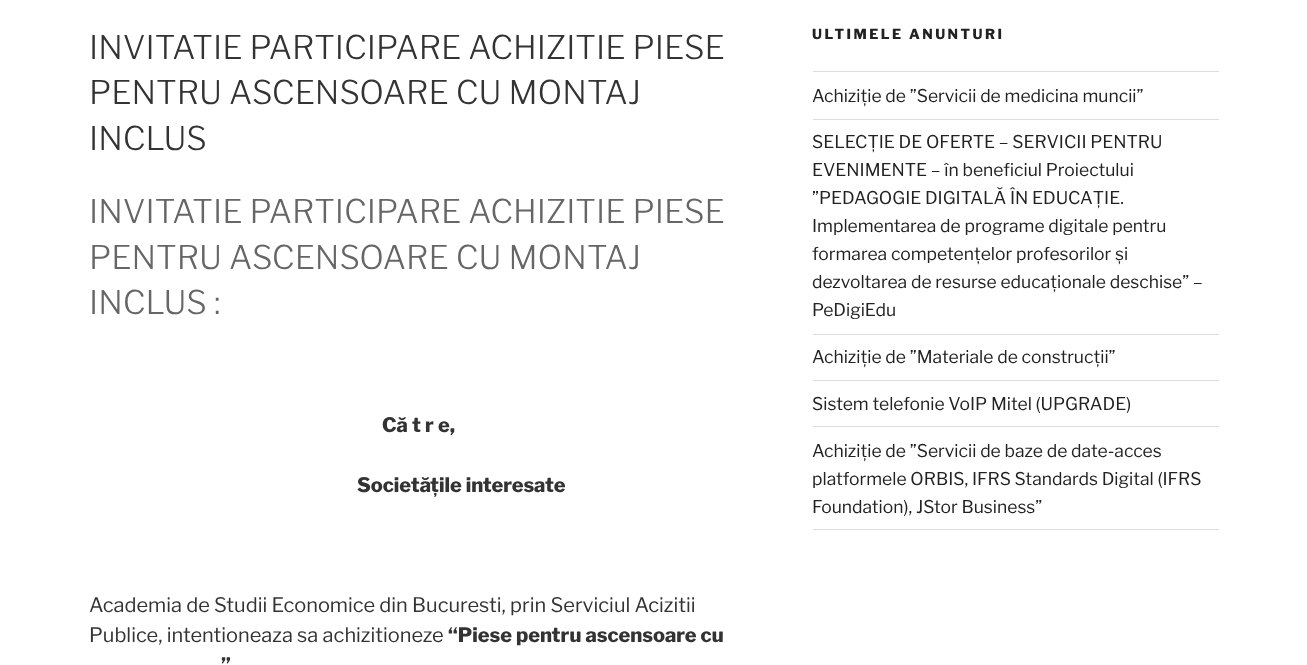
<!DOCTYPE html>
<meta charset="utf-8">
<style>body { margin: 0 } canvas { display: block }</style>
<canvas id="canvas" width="1307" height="665"></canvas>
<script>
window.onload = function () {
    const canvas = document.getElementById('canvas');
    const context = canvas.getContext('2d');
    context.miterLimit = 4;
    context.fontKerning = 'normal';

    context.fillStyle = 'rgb(255, 255, 255)';
    context.fillRect(0, 0, 1307, 665);
    context.fillStyle = 'rgb(221, 221, 221)';
    context.fillRect(813, 71, 406, 1);
    context.fillRect(813, 119, 406, 1);
    context.fillRect(813, 334, 406, 1);
    context.fillRect(813, 380, 406, 1);
    context.fillRect(813, 426, 406, 1);
    context.fillRect(813, 529, 406, 1);
    context.font = '100 32.5px Libre Franklin';
    context.fillStyle = 'rgb(51, 51, 51)';
    context.fillText('INVITATIE PARTICIPARE ACHIZITIE PIESE', 89, 59);
    context.fillText('PENTRU ASCENSOARE CU MONTAJ', 89, 104);
    context.fillText('INCLUS', 89, 150);
    context.fillStyle = 'rgb(102, 102, 102)';
    context.fillText('INVITATIE PARTICIPARE ACHIZITIE PIESE', 89, 223);
    context.fillText('PENTRU ASCENSOARE CU MONTAJ', 89, 269);
    context.fillText('INCLUS :', 89, 314);
    context.font = '100 20px "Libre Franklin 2"';
    context.fillStyle = 'rgb(51, 51, 51)';
    context.fillText('Că t r e,', 382, 432);
    context.fillText('Societă', 357, 492);
    context.fillText('țile interesate', 430, 492);
    context.font = '100 20px "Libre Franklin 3"';
    context.fillText('Academia de Studii Economice din Bucuresti, prin Serviciul Acizitii', 89, 612);
    context.fillText('Publice, intentioneaza sa achizitioneze', 89, 642);
    context.font = '100 20px "Libre Franklin 2"';
    context.fillText('“Piese pentru ascensoare cu', 448, 642);
    context.fillText('”', 221, 672);
    context.letterSpacing = '2.5px';
    context.font = '100 13.75px "Libre Franklin 2"';
    context.fillStyle = 'rgb(34, 34, 34)';
    context.fillText('ULTIMELE ANUNTURI', 812, 39);
    context.letterSpacing = '0px';
    context.font = '100 17.5px "Libre Franklin 3"';
    context.fillText('Achiziție de ”Servicii de medicina muncii”', 812, 102);
    context.fillText('SELECȚIE DE OFERTE – SERVICII PENTRU', 812, 148);
    context.fillText('EVENIMENTE – în beneficiul Proiectului', 812, 176);
    context.fillText('”PEDAGOGIE DIGITALĂ ÎN EDUCAȚIE.', 812, 204);
    context.fillText('Implementarea de programe digitale pentru', 812, 232);
    context.fillText('formarea competențelor profesorilor și', 812, 260);
    context.fillText('dezvoltarea de resurse educaționale deschise” –', 812, 288);
    context.fillText('PeDigiEdu', 812, 316);
    context.fillText('Achiziție de ”Materiale de construcții”', 812, 363);
    context.fillText('Sistem telefonie VoIP Mitel (UPGRADE)', 812, 410);
    context.fillText('Achiziție de ”Servicii de baze de date-acces', 812, 457);
    context.fillText('platformele ORBIS, IFRS Standards Digital (IFRS', 812, 485);
    context.fillText('Foundation), JStor Business”', 812, 513);
};
</script>
